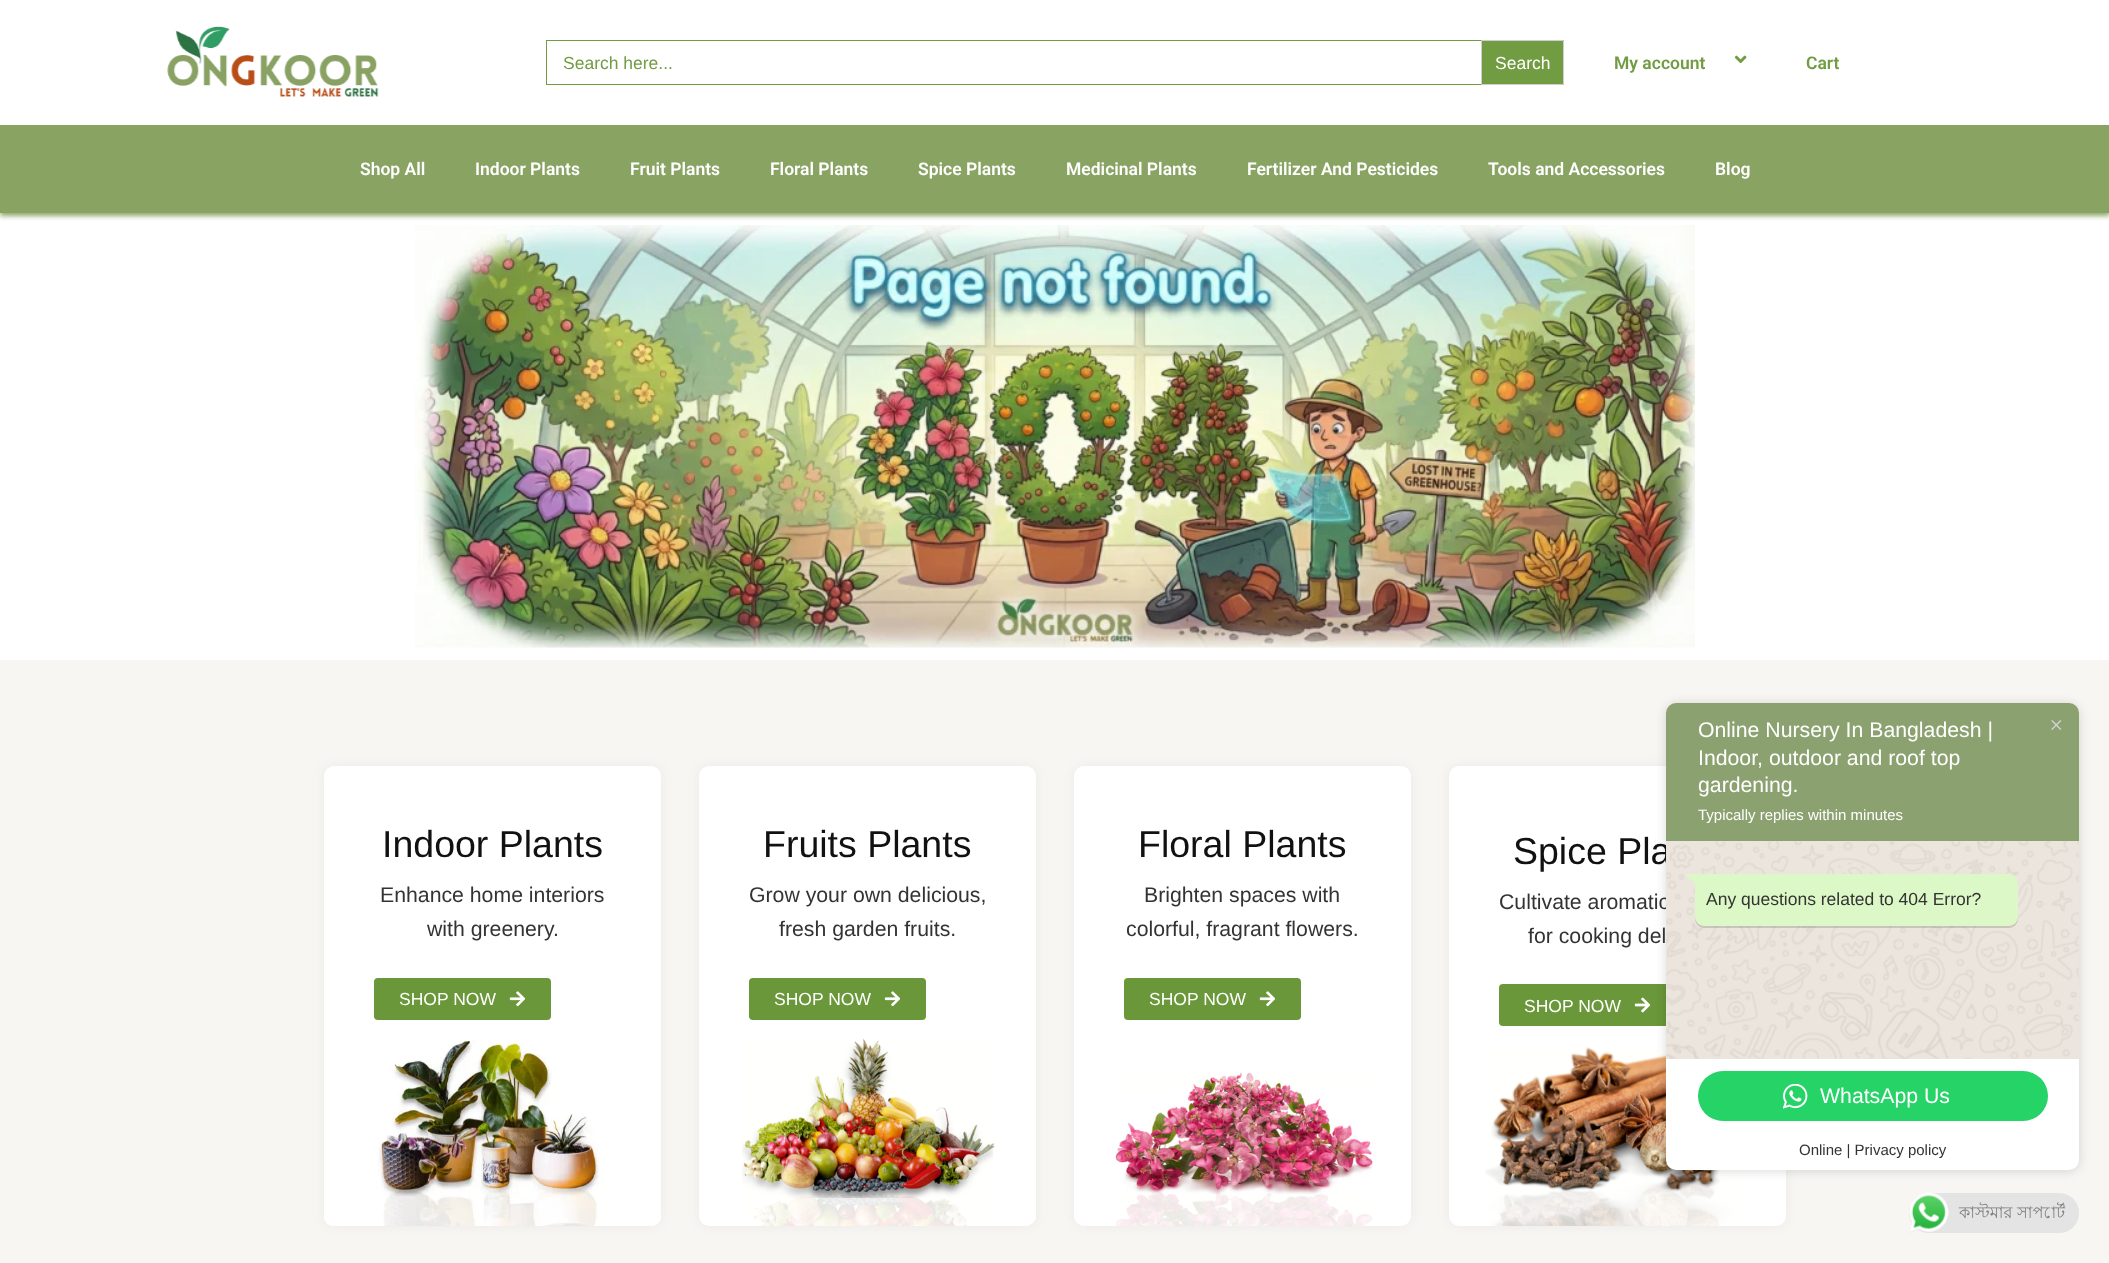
<!DOCTYPE html>
<meta charset="utf-8">
<style>body { margin: 0 } canvas { display: block }</style>
<canvas id="canvas" width="2109" height="1263"></canvas>
<img id="img1" src="images/1.png" hidden>
<img id="img2" src="images/2.png" hidden>
<img id="img3" src="images/3.png" hidden>
<img id="img4" src="images/4.png" hidden>
<img id="img5" src="images/5.png" hidden>
<img id="img6" src="images/6.png" hidden>
<img id="img7" src="images/7.png" hidden>
<img id="img8" src="images/8.png" hidden>
<img id="img9" src="images/9.png" hidden>
<img id="img10" src="images/11.png" hidden>
<img id="img11" src="images/13.png" hidden>
<img id="img12" src="images/10.png" hidden>
<img id="img13" src="images/12.png" hidden>
<script>
window.onload = function () {
    const canvas = document.getElementById('canvas');
    const context = canvas.getContext('2d');
    context.miterLimit = 4;
    context.fontKerning = 'normal';

    context.fillStyle = 'rgb(255, 255, 255)';
    context.fillRect(0, 0, 2109, 1263);
    context.fillStyle = 'rgb(143, 168, 108)';
    context.filter = 'blur(2.5px)';
    context.beginPath();
    context.rect(0, 4, 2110, 212);
    context.fill();
    context.filter = 'none';
    context.fillStyle = 'rgb(255, 255, 255)';
    context.fillRect(0, 0, 2109, 125);
    context.drawImage(document.getElementById('img1'), 167, 26, 212, 71);
    context.strokeStyle = 'rgb(113, 156, 66)';
    context.strokeRect(546.5, 40.5, 1017, 44);
    context.fillStyle = 'rgb(113, 156, 66)';
    context.beginPath();
    context.rect(1481.5, 40.5, 82, 44);
    context.fill();
    context.strokeStyle = 'rgb(207, 207, 207)';
    context.stroke();
    context.drawImage(document.getElementById('img2'), 1734, 55, 13, 9);
    context.fillStyle = 'rgb(137, 163, 99)';
    context.fillRect(0, 125, 2109, 88);
    context.drawImage(document.getElementById('img3'), 415, 225, 1280, 423);
    context.fillStyle = 'rgb(248, 246, 243)';
    context.fillRect(0, 660, 2109, 603);
    context.fillStyle = 'rgba(176, 180, 183, 0.17)';
    context.filter = 'blur(6px)';
    context.beginPath();
    context.roundRect(324, 766, 337, 460, 10);
    context.fill();
    context.filter = 'none';
    context.fillStyle = 'rgb(255, 255, 255)';
    context.beginPath();
    context.roundRect(324, 766, 337, 460, 10);
    context.fill();
    context.drawImage(document.getElementById('img4'), 324, 1039, 337, 187);
    context.fillStyle = 'rgb(106, 151, 57)';
    context.beginPath();
    context.roundRect(374, 978, 177, 42, 4);
    context.fill();
    context.drawImage(document.getElementById('img5'), 509, 991, 17, 16);
    context.fillStyle = 'rgba(176, 180, 183, 0.17)';
    context.filter = 'blur(6px)';
    context.beginPath();
    context.roundRect(699, 766, 337, 460, 10);
    context.fill();
    context.filter = 'none';
    context.fillStyle = 'rgb(255, 255, 255)';
    context.beginPath();
    context.roundRect(699, 766, 337, 460, 10);
    context.fill();
    context.drawImage(document.getElementById('img6'), 742, 1038, 253, 188);
    context.fillStyle = 'rgb(106, 151, 57)';
    context.beginPath();
    context.roundRect(749, 978, 177, 42, 4);
    context.fill();
    context.drawImage(document.getElementById('img5'), 884, 991, 17, 16);
    context.fillStyle = 'rgba(176, 180, 183, 0.17)';
    context.filter = 'blur(6px)';
    context.beginPath();
    context.roundRect(1074, 766, 337, 460, 10);
    context.fill();
    context.filter = 'none';
    context.fillStyle = 'rgb(255, 255, 255)';
    context.beginPath();
    context.roundRect(1074, 766, 337, 460, 10);
    context.fill();
    context.drawImage(document.getElementById('img7'), 1115, 1072, 258, 154);
    context.fillStyle = 'rgb(106, 151, 57)';
    context.beginPath();
    context.roundRect(1124, 978, 177, 42, 4);
    context.fill();
    context.drawImage(document.getElementById('img5'), 1259, 991, 17, 16);
    context.fillStyle = 'rgba(176, 180, 183, 0.17)';
    context.filter = 'blur(6px)';
    context.beginPath();
    context.roundRect(1449, 766, 337, 460, 10);
    context.fill();
    context.filter = 'none';
    context.fillStyle = 'rgb(255, 255, 255)';
    context.beginPath();
    context.roundRect(1449, 766, 337, 460, 10);
    context.fill();
    context.drawImage(document.getElementById('img8'), 1485, 1047, 260, 179);
    context.fillStyle = 'rgb(106, 151, 57)';
    context.beginPath();
    context.roundRect(1499, 984, 177, 42, 4);
    context.fill();
    context.drawImage(document.getElementById('img9'), 1634, 997, 17, 16);
    context.fillStyle = 'rgba(0, 0, 0, 0.14)';
    context.filter = 'blur(5.5px)';
    context.beginPath();
    context.roundRect(1666, 704, 413, 467, 10);
    context.fill();
    context.filter = 'none';
    context.fillStyle = 'rgb(255, 255, 255)';
    context.fillRect(1666, 1059, 413, 72);
    context.fillStyle = 'rgb(37, 211, 102)';
    context.beginPath();
    context.roundRect(1698, 1071, 350, 50, 25);
    context.fill();
    context.drawImage(document.getElementById('img10'), 1783, 1084, 25, 25);
    context.fillStyle = 'rgb(255, 255, 255)';
    context.beginPath();
    context.roundRect(1666, 1131, 413, 39, [0, 0, 10, 10]);
    context.fill();
    context.fillStyle = 'rgb(228, 228, 228)';
    context.beginPath();
    context.roundRect(1909, 1193, 170, 40, 20);
    context.fill();
    context.drawImage(document.getElementById('img11'), 1909, 1192, 40, 41);
    context.font = '17.5px Liberation Sans';
    context.fillStyle = 'rgb(113, 156, 66)';
    context.fillText('Search here...', 563, 69);
    context.fillStyle = 'rgb(255, 255, 255)';
    context.fillText('Search', 1495, 69);
    context.font = '600 17.5px Roboto';
    context.fillStyle = 'rgb(113, 156, 66)';
    context.fillText('My account', 1614, 69);
    context.fillText('Cart', 1806, 69);
    context.fillStyle = 'rgb(255, 255, 255)';
    context.fillText('Shop All', 360, 175);
    context.fillText('Indoor Plants', 475, 175);
    context.fillText('Fruit Plants', 630, 175);
    context.fillText('Floral Plants', 770, 175);
    context.fillText('Spice Plants', 918, 175);
    context.fillText('Medicinal Plants', 1066, 175);
    context.fillText('Fertilizer And Pesticides', 1247, 175);
    context.fillText('Tools and Accessories', 1488, 175);
    context.fillText('Blog', 1715, 175);
    context.font = '37.5px Liberation Sans';
    context.fillStyle = 'rgb(17, 17, 17)';
    context.fillText('Indoor Plants', 382, 857);
    context.font = '21.25px Liberation Sans';
    context.fillStyle = 'rgb(51, 51, 51)';
    context.fillText('Enhance home interiors', 380, 902);
    context.fillText('with greenery.', 427, 936);
    context.font = '17.5px Liberation Sans';
    context.fillStyle = 'rgb(255, 255, 255)';
    context.fillText('SHOP NOW', 399, 1005);
    context.font = '37.5px Liberation Sans';
    context.fillStyle = 'rgb(17, 17, 17)';
    context.fillText('Fruits Plants', 763, 857);
    context.font = '21.25px Liberation Sans';
    context.fillStyle = 'rgb(51, 51, 51)';
    context.fillText('Grow your own delicious,', 749, 902);
    context.fillText('fresh garden fruits.', 779, 936);
    context.font = '17.5px Liberation Sans';
    context.fillStyle = 'rgb(255, 255, 255)';
    context.fillText('SHOP NOW', 774, 1005);
    context.font = '37.5px Liberation Sans';
    context.fillStyle = 'rgb(17, 17, 17)';
    context.fillText('Floral Plants', 1138, 857);
    context.font = '21.25px Liberation Sans';
    context.fillStyle = 'rgb(51, 51, 51)';
    context.fillText('Brighten spaces with', 1144, 902);
    context.fillText('colorful, fragrant flowers.', 1126, 936);
    context.font = '17.5px Liberation Sans';
    context.fillStyle = 'rgb(255, 255, 255)';
    context.fillText('SHOP NOW', 1149, 1005);
    context.font = '37.5px Liberation Sans';
    context.fillStyle = 'rgb(17, 17, 17)';
    context.fillText('Spice Pla', 1513, 864);
    context.font = '21.25px Liberation Sans';
    context.fillStyle = 'rgb(51, 51, 51)';
    context.fillText('Cultivate aromatic', 1499, 909);
    context.fillText('for cooking del', 1528, 943);
    context.font = '17.5px Liberation Sans';
    context.fillStyle = 'rgb(255, 255, 255)';
    context.fillText('SHOP NOW', 1524, 1012);
    context.fillStyle = 'rgb(139, 161, 111)';
    context.beginPath();
    context.roundRect(1666, 703, 413, 140, [10, 10, 0, 0]);
    context.fill();
    context.font = '21.25px Liberation Sans';
    context.fillStyle = 'rgb(255, 255, 255)';
    context.fillText('Online Nursery In Bangladesh |', 1698, 737);
    context.fillText('Indoor, outdoor and roof top', 1698, 765);
    context.fillText('gardening.', 1698, 792);
    context.font = '15px Liberation Sans';
    context.fillText('Typically replies within minutes', 1698, 820);
    context.fillStyle = 'rgb(236, 229, 221)';
    context.fillRect(1666, 841, 413, 218);
    context.drawImage(document.getElementById('img12'), 1666, 841, 413, 218);
    context.fillStyle = 'rgba(0, 0, 0, 0.14)';
    context.filter = 'blur(0.5px)';
    context.beginPath();
    context.roundRect(1695, 875, 323, 53, 9);
    context.fill();
    context.filter = 'none';
    context.fillStyle = 'rgb(220, 248, 198)';
    context.beginPath();
    context.roundRect(1695, 874, 323, 52, [0, 9, 9, 9]);
    context.fill();
    context.beginPath();
    context.moveTo(1685, 874);
    context.lineTo(1696, 874);
    context.lineTo(1696, 885);
    context.closePath();
    context.fill();
    context.font = '17.5px Liberation Sans';
    context.fillStyle = 'rgb(51, 51, 51)';
    context.fillText('Any questions related to 404 Error?', 1706, 905);
    context.font = '21.25px Liberation Sans';
    context.fillStyle = 'rgb(255, 255, 255)';
    context.fillText('WhatsApp Us', 1820, 1103);
    context.font = '15px Liberation Sans';
    context.fillStyle = 'rgb(51, 51, 51)';
    context.fillText('Online | Privacy policy', 1799, 1155);
    context.drawImage(document.getElementById('img13'), 2051, 720, 11, 10);
    context.font = '16.25px Lohit Bengali';
    context.fillStyle = 'rgb(127, 125, 125)';
    context.fillText('কাস্টমার সাপোর্ট', 1959, 1218);
};
</script>
